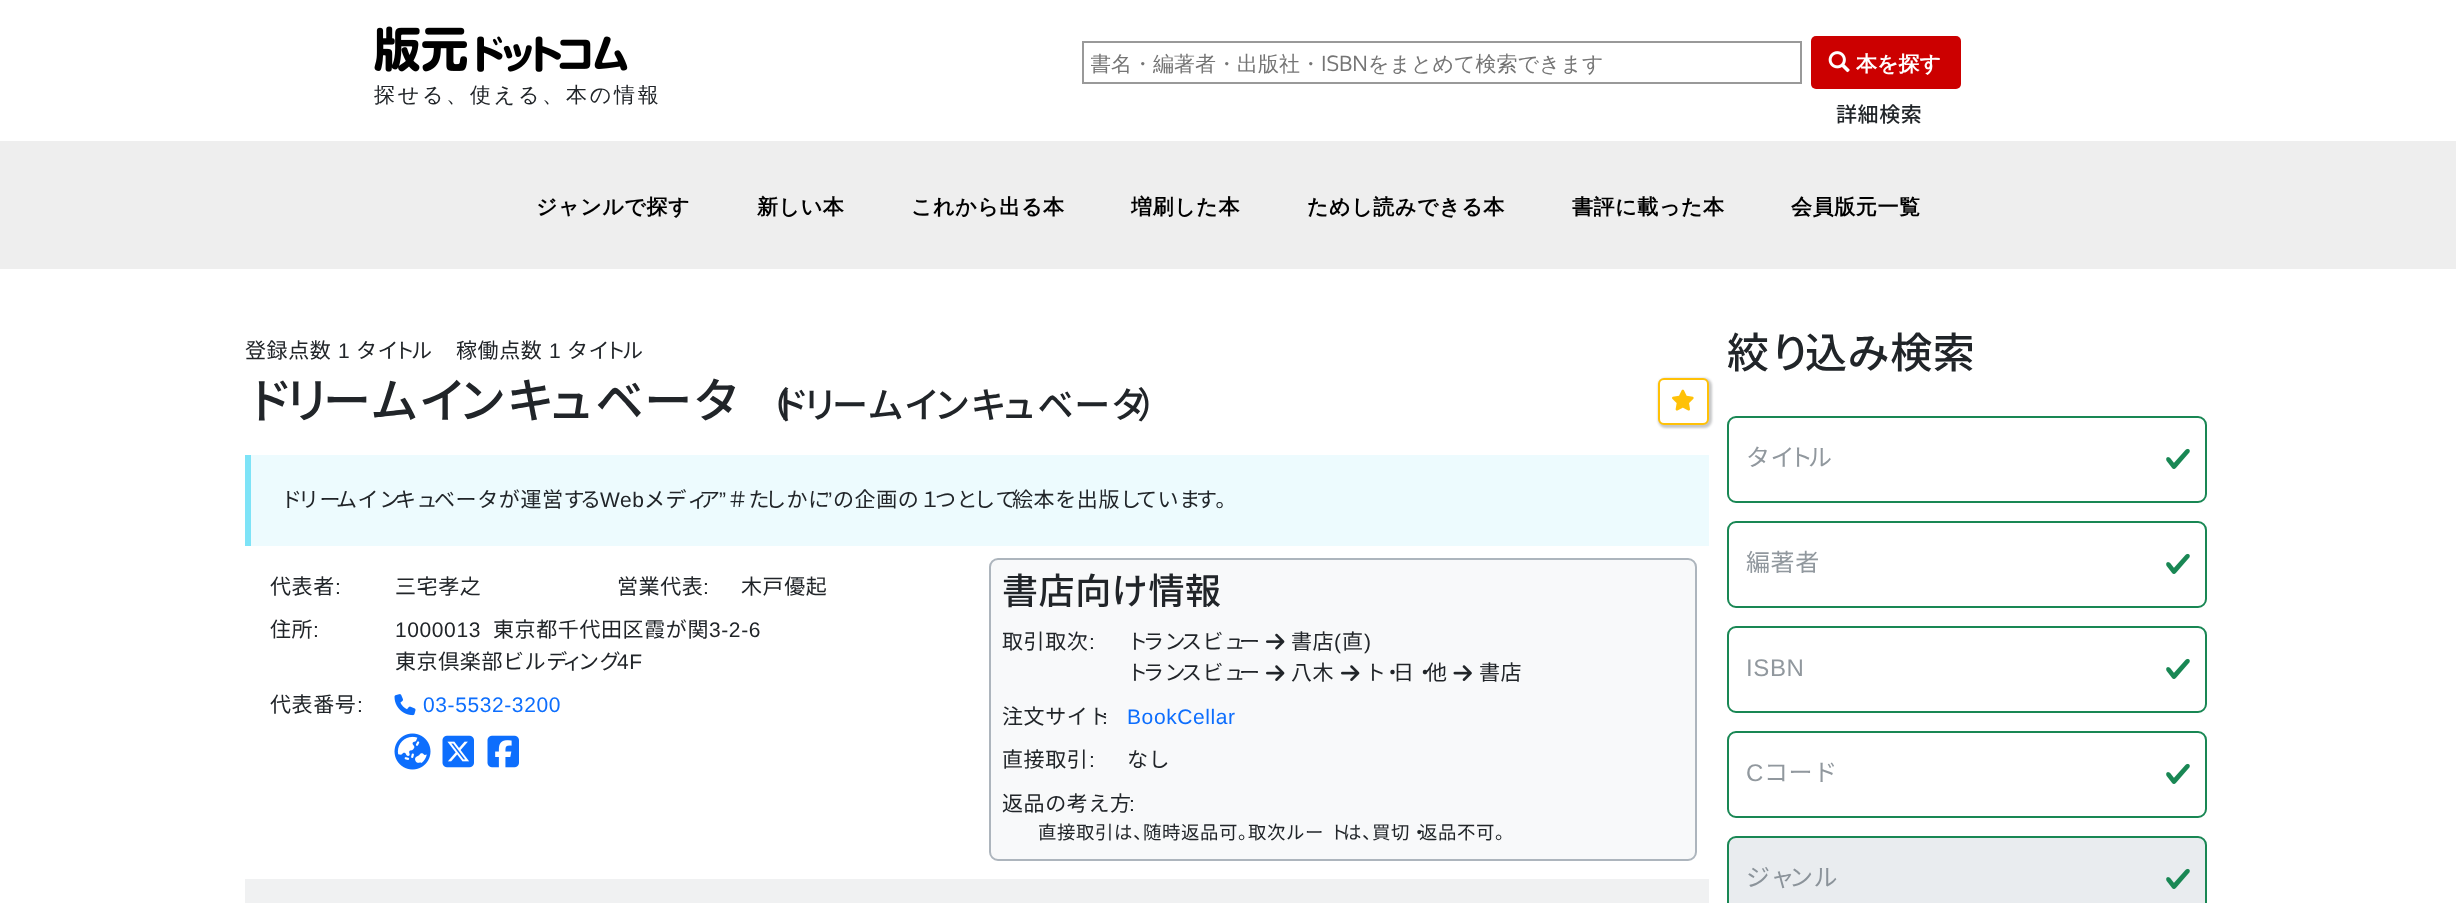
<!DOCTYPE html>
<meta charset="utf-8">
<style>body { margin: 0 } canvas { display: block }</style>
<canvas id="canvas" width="2456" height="903"></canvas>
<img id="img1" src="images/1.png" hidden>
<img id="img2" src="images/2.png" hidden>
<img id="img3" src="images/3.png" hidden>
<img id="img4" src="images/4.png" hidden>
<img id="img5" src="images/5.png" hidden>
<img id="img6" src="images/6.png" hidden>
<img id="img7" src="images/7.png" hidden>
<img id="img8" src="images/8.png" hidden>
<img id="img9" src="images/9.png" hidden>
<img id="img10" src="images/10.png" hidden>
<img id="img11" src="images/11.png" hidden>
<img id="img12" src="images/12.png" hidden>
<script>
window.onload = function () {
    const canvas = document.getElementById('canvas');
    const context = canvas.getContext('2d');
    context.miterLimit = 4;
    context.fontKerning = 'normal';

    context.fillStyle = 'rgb(255, 255, 255)';
    context.fillRect(0, 0, 2456, 903);
    context.strokeStyle = 'rgb(153, 153, 153)';
    context.lineWidth = 2;
    context.strokeRect(1083, 42, 718, 41);
    context.fillStyle = 'rgb(204, 0, 0)';
    context.beginPath();
    context.roundRect(1811, 36, 150, 53, 5);
    context.fill();
    context.drawImage(document.getElementById('img1'), 1828, 51, 22, 22);
    context.drawImage(document.getElementById('img2'), 374, 26, 254, 46);
    context.fillStyle = 'rgb(238, 238, 238)';
    context.fillRect(0, 141, 2456, 128);
    context.fillStyle = 'rgba(33, 37, 41, 0.25)';
    context.filter = 'blur(1px)';
    context.beginPath();
    context.roundRect(1658, 378, 54, 50, 8);
    context.fill();
    context.filter = 'none';
    context.fillStyle = 'rgb(255, 255, 255)';
    context.beginPath();
    context.roundRect(1659, 379, 49, 45, 5);
    context.fill();
    context.strokeStyle = 'rgb(255, 193, 7)';
    context.stroke();
    context.drawImage(document.getElementById('img3'), 1672, 389, 22, 22);
    context.fillStyle = 'rgb(237, 251, 254)';
    context.fillRect(251, 455, 1458, 91);
    context.fillStyle = 'rgb(125, 227, 247)';
    context.fillRect(245, 455, 6, 91);
    context.drawImage(document.getElementById('img4'), 394, 694, 22, 22);
    context.drawImage(document.getElementById('img5'), 394, 733, 37, 37);
    context.drawImage(document.getElementById('img6'), 442, 735, 32, 33);
    context.drawImage(document.getElementById('img7'), 487, 735, 32, 33);
    context.fillStyle = 'rgb(248, 249, 250)';
    context.beginPath();
    context.roundRect(990, 559, 706, 301, 8);
    context.fill();
    context.strokeStyle = 'rgb(173, 181, 189)';
    context.stroke();
    context.drawImage(document.getElementById('img8'), 1266, 633, 19, 17);
    context.drawImage(document.getElementById('img9'), 1266, 665, 19, 16);
    context.drawImage(document.getElementById('img9'), 1341, 665, 19, 16);
    context.drawImage(document.getElementById('img10'), 1453, 665, 19, 16);
    context.fillStyle = 'rgb(240, 241, 242)';
    context.fillRect(245, 879, 1464, 24);
    context.drawImage(document.getElementById('img11'), 2166, 448, 24, 21);
    context.beginPath();
    context.roundRect(1728, 417, 478, 85, 8);
    context.strokeStyle = 'rgb(25, 135, 84)';
    context.stroke();
    context.drawImage(document.getElementById('img11'), 2166, 553, 24, 21);
    context.beginPath();
    context.roundRect(1728, 522, 478, 85, 8);
    context.stroke();
    context.drawImage(document.getElementById('img11'), 2166, 658, 24, 21);
    context.beginPath();
    context.roundRect(1728, 627, 478, 85, 8);
    context.stroke();
    context.drawImage(document.getElementById('img11'), 2166, 763, 24, 21);
    context.beginPath();
    context.roundRect(1728, 732, 478, 85, 8);
    context.stroke();
    context.fillStyle = 'rgb(233, 236, 239)';
    context.beginPath();
    context.roundRect(1728, 837, 477, 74, 8);
    context.fill();
    context.drawImage(document.getElementById('img12'), 2166, 868, 24, 21);
    context.beginPath();
    context.roundRect(1728, 837, 478, 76, 8);
    context.stroke();
    context.save();
    context.beginPath();
    context.rect(1091, 50, 702, 28);
    context.clip();
    context.font = '500 21px WenQuanYi Zen Hei';
    context.fillStyle = 'rgb(117, 117, 117)';
    context.fillText('書名・編著者・出版社・', 1090, 71);
    context.restore();
    context.font = '21px Oxygen';
    context.fillStyle = 'rgb(117, 117, 117)';
    context.fillText('ISBN', 1321, 71);
    context.font = '500 21px WenQuanYi Zen Hei';
    context.fillText('をまとめて検索できます', 1368, 71);
    context.font = 'bold 21px WenQuanYi Zen Hei';
    context.fillStyle = 'rgb(255, 255, 255)';
    context.fillText('本を探す', 1856, 71);
    context.letterSpacing = '2.75px';
    context.font = '500 21px WenQuanYi Zen Hei';
    context.fillStyle = 'rgb(33, 37, 41)';
    context.fillText('探せる、使える、本の情報', 374, 102);
    context.letterSpacing = '0.6px';
    context.font = '500 21px Noto Sans JP';
    context.fillText('詳細検索', 1836, 122);
    context.font = 'bold 21px WenQuanYi Zen Hei';
    context.fillStyle = 'rgb(0, 0, 0)';
    context.fillText('ジャンルで探す', 536, 214);
    context.fillText('新しい本', 757, 214);
    context.fillText('これから出る本', 911, 214);
    context.fillText('増刷した本', 1131, 214);
    context.fillText('ためし読みできる本', 1307, 214);
    context.fillText('書評に載った本', 1572, 214);
    context.fillText('会員版元一覧', 1791, 214);
    context.font = '21px Noto Sans JP';
    context.fillStyle = 'rgb(33, 37, 41)';
    context.fillText('登録点数', 245, 358);
    context.font = '21px Liberation Sans';
    context.fillText('1', 338, 358);
    context.font = '21px Noto Sans JP';
    context.fillText('タイ', 356, 358);
    context.fillText('ト', 394, 358);
    context.fillText('ル', 411, 358);
    context.fillText('稼働点数', 456, 358);
    context.font = '21px Liberation Sans';
    context.fillText('1', 549, 358);
    context.font = '21px Noto Sans JP';
    context.fillText('タイ', 567, 358);
    context.fillText('ト', 605, 358);
    context.fillText('ル', 622, 358);
    context.font = '500 48px Noto Sans JP';
    context.fillText('ド', 245, 418);
    context.fillText('リ', 283, 418);
    context.fillText('ームイ', 323, 418);
    context.fillText('ンキ', 458, 418);
    context.fillText('ュベータ', 547, 418);
    context.font = '500 36px Noto Sans JP';
    context.fillText('（', 754, 418);
    context.fillText('ド', 773, 418);
    context.fillText('リ', 802, 418);
    context.fillText('ームイ', 832, 418);
    context.fillText('ンキ', 934, 418);
    context.fillText('ュベータ', 1001, 418);
    context.fillText('）', 1137, 418);
    context.font = '21px Noto Sans JP';
    context.fillText('ド', 281, 507);
    context.fillText('リー', 298, 507);
    context.fillText('ムイン', 336, 507);
    context.fillText('キュ', 395, 507);
    context.fillText('ベータが運営す', 434, 507);
    context.fillText('る', 580, 507);
    context.font = '21px Liberation Sans';
    context.fillText('Web', 600, 507);
    context.font = '21px Noto Sans JP';
    context.fillText('メディ', 644, 507);
    context.fillText('ア', 699, 507);
    context.font = '21px Liberation Sans';
    context.fillText('”', 719, 507);
    context.font = '21px Noto Sans JP';
    context.fillText('＃た', 727, 507);
    context.fillText('しかに', 765, 507);
    context.font = '21px Liberation Sans';
    context.fillText('”', 825, 507);
    context.font = '21px Noto Sans JP';
    context.fillText('の企画の１', 833, 507);
    context.fillText('つと', 935, 507);
    context.fillText('して', 974, 507);
    context.fillText('絵本を出版し', 1012, 507);
    context.fillText('ていま', 1136, 507);
    context.fillText('す。', 1196, 507);
    context.fillText('代表者', 270, 594);
    context.font = '21px Liberation Sans';
    context.fillText(':', 335, 594);
    context.font = '21px Noto Sans JP';
    context.fillText('三宅孝之', 395, 594);
    context.fillText('営業代表', 617, 594);
    context.font = '21px Liberation Sans';
    context.fillText(':', 703, 594);
    context.font = '21px Noto Sans JP';
    context.fillText('木戸優起', 741, 594);
    context.fillText('住所', 270, 637);
    context.font = '21px Liberation Sans';
    context.fillText(':', 313, 637);
    context.fillText('1000013', 395, 637);
    context.font = '21px Noto Sans JP';
    context.fillText('東京都千代田区霞が関', 493, 637);
    context.font = '21px Liberation Sans';
    context.fillText('3-2-6', 709, 637);
    context.font = '21px Noto Sans JP';
    context.fillText('東京倶楽部ビルデ', 395, 669);
    context.fillText('ィ', 562, 669);
    context.fillText('ング', 578, 669);
    context.font = '21px Liberation Sans';
    context.fillText('4F', 617, 669);
    context.font = '21px Noto Sans JP';
    context.fillText('代表番号', 270, 712);
    context.font = '21px Liberation Sans';
    context.fillText(':', 357, 712);
    context.fillStyle = 'rgb(13, 110, 253)';
    context.fillText('03-5532-3200', 423, 712);
    context.font = '500 36px Noto Sans JP';
    context.fillStyle = 'rgb(33, 37, 41)';
    context.fillText('書店向け情報', 1002, 604);
    context.font = '21px Noto Sans JP';
    context.fillText('取引取次', 1002, 649);
    context.font = '21px Liberation Sans';
    context.fillText(':', 1089, 649);
    context.font = '21px Noto Sans JP';
    context.fillText('ト', 1127, 649);
    context.fillText('ラン', 1143, 649);
    context.fillText('スビュ', 1181, 649);
    context.fillText('ー', 1239, 649);
    context.fillText('書店', 1291, 649);
    context.font = '21px Liberation Sans';
    context.fillText('(', 1334, 649);
    context.font = '21px Noto Sans JP';
    context.fillText('直', 1342, 649);
    context.font = '21px Liberation Sans';
    context.fillText(')', 1364, 649);
    context.font = '21px Noto Sans JP';
    context.fillText('ト', 1127, 680);
    context.fillText('ラン', 1143, 680);
    context.fillText('スビュ', 1181, 680);
    context.fillText('ー', 1239, 680);
    context.fillText('八木', 1291, 680);
    context.fillText('ト', 1365, 680);
    context.fillText('・', 1382, 680);
    context.fillText('日・', 1393, 680);
    context.fillText('他', 1426, 680);
    context.fillText('書店', 1479, 680);
    context.fillText('注文サイト', 1002, 724);
    context.font = '21px Liberation Sans';
    context.fillText(':', 1102, 724);
    context.fillStyle = 'rgb(13, 110, 253)';
    context.fillText('BookCellar', 1127, 724);
    context.font = '21px Noto Sans JP';
    context.fillStyle = 'rgb(33, 37, 41)';
    context.fillText('直接取引', 1002, 767);
    context.font = '21px Liberation Sans';
    context.fillText(':', 1089, 767);
    context.font = '21px Noto Sans JP';
    context.fillText('なし', 1127, 767);
    context.fillText('返品の考え方', 1002, 811);
    context.font = '21px Liberation Sans';
    context.fillText(':', 1129, 811);
    context.wordSpacing = '1px';
    context.font = '18.4px Noto Sans JP';
    context.fillText('直接取引は、', 1038, 839);
    context.fillText('随時返品可。', 1143, 839);
    context.fillText('取次ルー ト', 1248, 839);
    context.fillText('は、', 1343, 839);
    context.fillText('買切・', 1372, 839);
    context.fillText('返品不可。', 1419, 839);
    context.wordSpacing = '0px';
    context.font = '500 42px Noto Sans JP';
    context.fillText('絞り', 1727, 368);
    context.fillText('込み検索', 1805, 368);
    context.font = '24px Noto Sans JP';
    context.fillStyle = 'rgb(145, 152, 158)';
    context.fillText('タイ', 1746, 466);
    context.fillText('ト', 1789, 466);
    context.fillText('ル', 1808, 466);
    context.fillText('編著者', 1746, 571);
    context.font = '24px Liberation Sans';
    context.fillText('ISBN', 1746, 676);
    context.fillText('C', 1746, 781);
    context.font = '24px Noto Sans JP';
    context.fillText('コード', 1764, 781);
    context.fillStyle = 'rgb(139, 147, 154)';
    context.fillText('ジャ', 1746, 886);
    context.fillText('ンル', 1789, 886);
};
</script>
